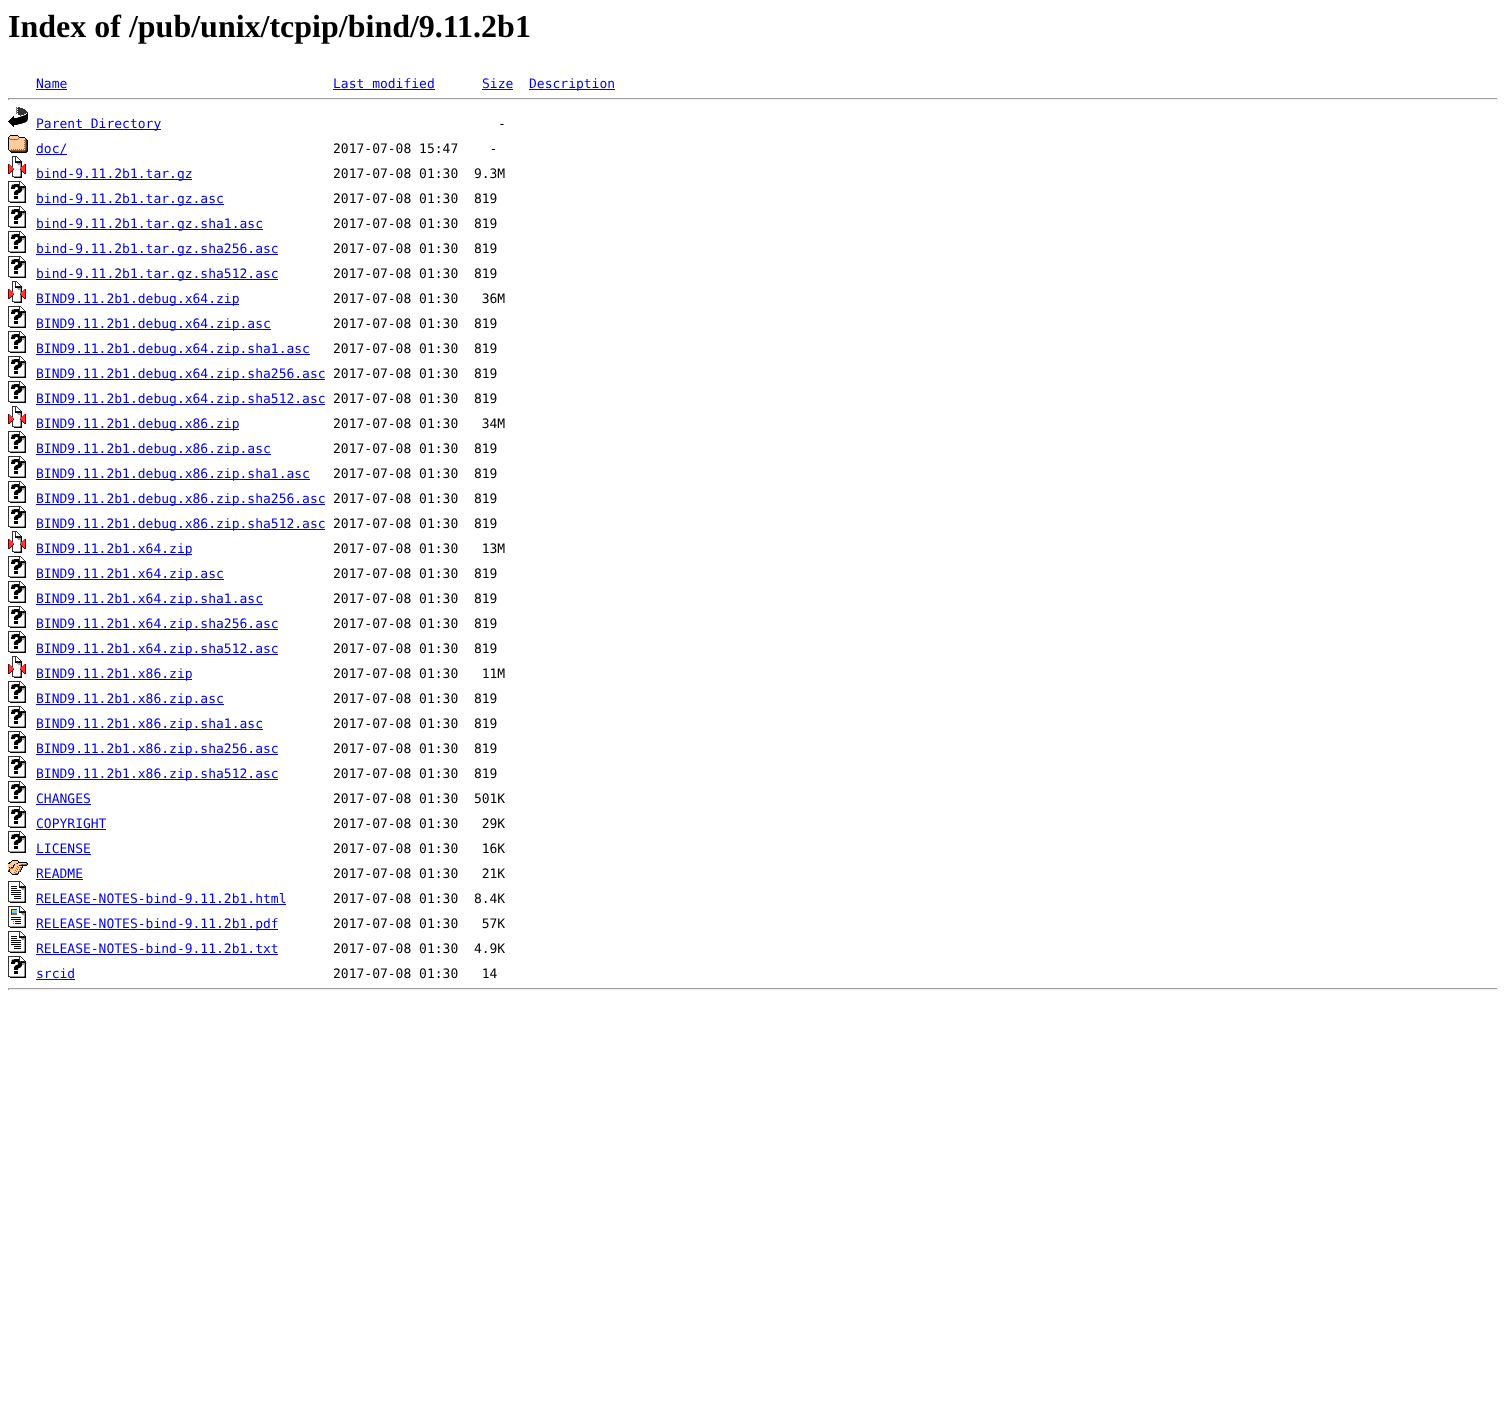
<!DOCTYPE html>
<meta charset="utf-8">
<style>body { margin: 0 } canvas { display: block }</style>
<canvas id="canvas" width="1506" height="1423"></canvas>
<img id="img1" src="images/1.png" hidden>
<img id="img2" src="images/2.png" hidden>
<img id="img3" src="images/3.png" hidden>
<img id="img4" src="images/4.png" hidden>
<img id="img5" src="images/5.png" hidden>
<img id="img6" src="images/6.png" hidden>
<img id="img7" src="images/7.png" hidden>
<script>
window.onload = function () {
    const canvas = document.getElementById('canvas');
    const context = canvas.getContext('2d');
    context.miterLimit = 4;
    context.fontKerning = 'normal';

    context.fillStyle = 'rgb(255, 255, 255)';
    context.fillRect(0, 0, 1506, 1423);
    context.fillStyle = 'rgb(0, 0, 238)';
    context.fillRect(36, 89, 31, 1);
    context.fillRect(333, 89, 102, 1);
    context.fillRect(482, 89, 31, 1);
    context.fillRect(529, 89, 86, 1);
    context.fillStyle = 'rgb(159, 159, 159)';
    context.fillRect(8, 98, 1490, 1);
    context.fillStyle = 'rgb(238, 238, 238)';
    context.fillRect(1497, 98, 1, 2);
    context.fillRect(8, 99, 1490, 1);
    context.fillStyle = 'rgb(159, 159, 159)';
    context.fillRect(8, 98, 1, 2);
    context.drawImage(document.getElementById('img1'), 8, 107, 20, 20);
    context.fillStyle = 'rgb(0, 0, 238)';
    context.fillRect(36, 129, 125, 1);
    context.drawImage(document.getElementById('img2'), 8, 135, 20, 18);
    context.fillRect(36, 154, 31, 1);
    context.drawImage(document.getElementById('img3'), 8, 156, 18, 22);
    context.fillRect(36, 179, 156, 1);
    context.drawImage(document.getElementById('img4'), 8, 181, 18, 22);
    context.fillRect(36, 204, 188, 1);
    context.drawImage(document.getElementById('img4'), 8, 206, 18, 22);
    context.fillRect(36, 229, 227, 1);
    context.drawImage(document.getElementById('img4'), 8, 231, 18, 22);
    context.fillRect(36, 254, 242, 1);
    context.drawImage(document.getElementById('img4'), 8, 256, 18, 22);
    context.fillRect(36, 279, 242, 1);
    context.drawImage(document.getElementById('img3'), 8, 281, 18, 22);
    context.fillRect(36, 304, 203, 1);
    context.drawImage(document.getElementById('img4'), 8, 306, 18, 22);
    context.fillRect(36, 329, 235, 1);
    context.drawImage(document.getElementById('img4'), 8, 331, 18, 22);
    context.fillRect(36, 354, 274, 1);
    context.drawImage(document.getElementById('img4'), 8, 356, 18, 22);
    context.fillRect(36, 379, 289, 1);
    context.drawImage(document.getElementById('img4'), 8, 381, 18, 22);
    context.fillRect(36, 404, 289, 1);
    context.drawImage(document.getElementById('img3'), 8, 406, 18, 22);
    context.fillRect(36, 429, 203, 1);
    context.drawImage(document.getElementById('img4'), 8, 431, 18, 22);
    context.fillRect(36, 454, 235, 1);
    context.drawImage(document.getElementById('img4'), 8, 456, 18, 22);
    context.fillRect(36, 479, 274, 1);
    context.drawImage(document.getElementById('img4'), 8, 481, 18, 22);
    context.fillRect(36, 504, 289, 1);
    context.drawImage(document.getElementById('img4'), 8, 506, 18, 22);
    context.fillRect(36, 529, 289, 1);
    context.drawImage(document.getElementById('img3'), 8, 531, 18, 22);
    context.fillRect(36, 554, 156, 1);
    context.drawImage(document.getElementById('img4'), 8, 556, 18, 22);
    context.fillRect(36, 579, 188, 1);
    context.drawImage(document.getElementById('img4'), 8, 581, 18, 22);
    context.fillRect(36, 604, 227, 1);
    context.drawImage(document.getElementById('img4'), 8, 606, 18, 22);
    context.fillRect(36, 629, 242, 1);
    context.drawImage(document.getElementById('img4'), 8, 631, 18, 22);
    context.fillRect(36, 654, 242, 1);
    context.drawImage(document.getElementById('img3'), 8, 656, 18, 22);
    context.fillRect(36, 679, 156, 1);
    context.drawImage(document.getElementById('img4'), 8, 681, 18, 22);
    context.fillRect(36, 704, 188, 1);
    context.drawImage(document.getElementById('img4'), 8, 706, 18, 22);
    context.fillRect(36, 729, 227, 1);
    context.drawImage(document.getElementById('img4'), 8, 731, 18, 22);
    context.fillRect(36, 754, 242, 1);
    context.drawImage(document.getElementById('img4'), 8, 756, 18, 22);
    context.fillRect(36, 779, 242, 1);
    context.drawImage(document.getElementById('img4'), 8, 781, 18, 22);
    context.fillRect(36, 804, 55, 1);
    context.drawImage(document.getElementById('img4'), 8, 806, 18, 22);
    context.fillRect(36, 829, 70, 1);
    context.drawImage(document.getElementById('img4'), 8, 831, 18, 22);
    context.fillRect(36, 854, 55, 1);
    context.drawImage(document.getElementById('img5'), 8, 860, 20, 15);
    context.fillRect(36, 879, 47, 1);
    context.drawImage(document.getElementById('img6'), 8, 881, 18, 22);
    context.fillRect(36, 904, 250, 1);
    context.drawImage(document.getElementById('img7'), 8, 906, 18, 22);
    context.fillRect(36, 929, 242, 1);
    context.drawImage(document.getElementById('img6'), 8, 931, 18, 22);
    context.fillRect(36, 954, 242, 1);
    context.drawImage(document.getElementById('img4'), 8, 956, 18, 22);
    context.fillRect(36, 979, 39, 1);
    context.fillStyle = 'rgb(159, 159, 159)';
    context.fillRect(8, 988, 1490, 1);
    context.fillStyle = 'rgb(238, 238, 238)';
    context.fillRect(1497, 988, 1, 2);
    context.fillRect(8, 989, 1490, 1);
    context.fillStyle = 'rgb(159, 159, 159)';
    context.fillRect(8, 988, 1, 2);
    context.font = 'bold 32px Liberation Serif';
    context.fillStyle = 'rgb(0, 0, 0)';
    context.fillText('Index of /pub/unix/tcpip/bind/9.11.2b1', 8, 37);
    context.font = '13px DejaVu Sans Mono';
    context.fillStyle = 'rgb(0, 0, 238)';
    context.fillText('Name', 36, 88);
    context.fillText('Last modified', 333, 88);
    context.fillText('Size', 482, 88);
    context.fillText('Description', 529, 88);
    context.fillText('Parent Directory', 36, 128);
    context.fillStyle = 'rgb(0, 0, 0)';
    context.fillText('-', 498, 128);
    context.fillStyle = 'rgb(0, 0, 238)';
    context.fillText('doc/', 36, 153);
    context.fillStyle = 'rgb(0, 0, 0)';
    context.fillText('2017-07-08 15:47    -', 333, 153);
    context.fillStyle = 'rgb(0, 0, 238)';
    context.fillText('bind-9.11.2b1.tar.gz', 36, 178);
    context.fillStyle = 'rgb(0, 0, 0)';
    context.fillText('2017-07-08 01:30  9.3M', 333, 178);
    context.fillStyle = 'rgb(0, 0, 238)';
    context.fillText('bind-9.11.2b1.tar.gz.asc', 36, 203);
    context.fillStyle = 'rgb(0, 0, 0)';
    context.fillText('2017-07-08 01:30  819', 333, 203);
    context.fillStyle = 'rgb(0, 0, 238)';
    context.fillText('bind-9.11.2b1.tar.gz.sha1.asc', 36, 228);
    context.fillStyle = 'rgb(0, 0, 0)';
    context.fillText('2017-07-08 01:30  819', 333, 228);
    context.fillStyle = 'rgb(0, 0, 238)';
    context.fillText('bind-9.11.2b1.tar.gz.sha256.asc', 36, 253);
    context.fillStyle = 'rgb(0, 0, 0)';
    context.fillText('2017-07-08 01:30  819', 333, 253);
    context.fillStyle = 'rgb(0, 0, 238)';
    context.fillText('bind-9.11.2b1.tar.gz.sha512.asc', 36, 278);
    context.fillStyle = 'rgb(0, 0, 0)';
    context.fillText('2017-07-08 01:30  819', 333, 278);
    context.fillStyle = 'rgb(0, 0, 238)';
    context.fillText('BIND9.11.2b1.debug.x64.zip', 36, 303);
    context.fillStyle = 'rgb(0, 0, 0)';
    context.fillText('2017-07-08 01:30   36M', 333, 303);
    context.fillStyle = 'rgb(0, 0, 238)';
    context.fillText('BIND9.11.2b1.debug.x64.zip.asc', 36, 328);
    context.fillStyle = 'rgb(0, 0, 0)';
    context.fillText('2017-07-08 01:30  819', 333, 328);
    context.fillStyle = 'rgb(0, 0, 238)';
    context.fillText('BIND9.11.2b1.debug.x64.zip.sha1.asc', 36, 353);
    context.fillStyle = 'rgb(0, 0, 0)';
    context.fillText('2017-07-08 01:30  819', 333, 353);
    context.fillStyle = 'rgb(0, 0, 238)';
    context.fillText('BIND9.11.2b1.debug.x64.zip.sha256.asc', 36, 378);
    context.fillStyle = 'rgb(0, 0, 0)';
    context.fillText('2017-07-08 01:30  819', 333, 378);
    context.fillStyle = 'rgb(0, 0, 238)';
    context.fillText('BIND9.11.2b1.debug.x64.zip.sha512.asc', 36, 403);
    context.fillStyle = 'rgb(0, 0, 0)';
    context.fillText('2017-07-08 01:30  819', 333, 403);
    context.fillStyle = 'rgb(0, 0, 238)';
    context.fillText('BIND9.11.2b1.debug.x86.zip', 36, 428);
    context.fillStyle = 'rgb(0, 0, 0)';
    context.fillText('2017-07-08 01:30   34M', 333, 428);
    context.fillStyle = 'rgb(0, 0, 238)';
    context.fillText('BIND9.11.2b1.debug.x86.zip.asc', 36, 453);
    context.fillStyle = 'rgb(0, 0, 0)';
    context.fillText('2017-07-08 01:30  819', 333, 453);
    context.fillStyle = 'rgb(0, 0, 238)';
    context.fillText('BIND9.11.2b1.debug.x86.zip.sha1.asc', 36, 478);
    context.fillStyle = 'rgb(0, 0, 0)';
    context.fillText('2017-07-08 01:30  819', 333, 478);
    context.fillStyle = 'rgb(0, 0, 238)';
    context.fillText('BIND9.11.2b1.debug.x86.zip.sha256.asc', 36, 503);
    context.fillStyle = 'rgb(0, 0, 0)';
    context.fillText('2017-07-08 01:30  819', 333, 503);
    context.fillStyle = 'rgb(0, 0, 238)';
    context.fillText('BIND9.11.2b1.debug.x86.zip.sha512.asc', 36, 528);
    context.fillStyle = 'rgb(0, 0, 0)';
    context.fillText('2017-07-08 01:30  819', 333, 528);
    context.fillStyle = 'rgb(0, 0, 238)';
    context.fillText('BIND9.11.2b1.x64.zip', 36, 553);
    context.fillStyle = 'rgb(0, 0, 0)';
    context.fillText('2017-07-08 01:30   13M', 333, 553);
    context.fillStyle = 'rgb(0, 0, 238)';
    context.fillText('BIND9.11.2b1.x64.zip.asc', 36, 578);
    context.fillStyle = 'rgb(0, 0, 0)';
    context.fillText('2017-07-08 01:30  819', 333, 578);
    context.fillStyle = 'rgb(0, 0, 238)';
    context.fillText('BIND9.11.2b1.x64.zip.sha1.asc', 36, 603);
    context.fillStyle = 'rgb(0, 0, 0)';
    context.fillText('2017-07-08 01:30  819', 333, 603);
    context.fillStyle = 'rgb(0, 0, 238)';
    context.fillText('BIND9.11.2b1.x64.zip.sha256.asc', 36, 628);
    context.fillStyle = 'rgb(0, 0, 0)';
    context.fillText('2017-07-08 01:30  819', 333, 628);
    context.fillStyle = 'rgb(0, 0, 238)';
    context.fillText('BIND9.11.2b1.x64.zip.sha512.asc', 36, 653);
    context.fillStyle = 'rgb(0, 0, 0)';
    context.fillText('2017-07-08 01:30  819', 333, 653);
    context.fillStyle = 'rgb(0, 0, 238)';
    context.fillText('BIND9.11.2b1.x86.zip', 36, 678);
    context.fillStyle = 'rgb(0, 0, 0)';
    context.fillText('2017-07-08 01:30   11M', 333, 678);
    context.fillStyle = 'rgb(0, 0, 238)';
    context.fillText('BIND9.11.2b1.x86.zip.asc', 36, 703);
    context.fillStyle = 'rgb(0, 0, 0)';
    context.fillText('2017-07-08 01:30  819', 333, 703);
    context.fillStyle = 'rgb(0, 0, 238)';
    context.fillText('BIND9.11.2b1.x86.zip.sha1.asc', 36, 728);
    context.fillStyle = 'rgb(0, 0, 0)';
    context.fillText('2017-07-08 01:30  819', 333, 728);
    context.fillStyle = 'rgb(0, 0, 238)';
    context.fillText('BIND9.11.2b1.x86.zip.sha256.asc', 36, 753);
    context.fillStyle = 'rgb(0, 0, 0)';
    context.fillText('2017-07-08 01:30  819', 333, 753);
    context.fillStyle = 'rgb(0, 0, 238)';
    context.fillText('BIND9.11.2b1.x86.zip.sha512.asc', 36, 778);
    context.fillStyle = 'rgb(0, 0, 0)';
    context.fillText('2017-07-08 01:30  819', 333, 778);
    context.fillStyle = 'rgb(0, 0, 238)';
    context.fillText('CHANGES', 36, 803);
    context.fillStyle = 'rgb(0, 0, 0)';
    context.fillText('2017-07-08 01:30  501K', 333, 803);
    context.fillStyle = 'rgb(0, 0, 238)';
    context.fillText('COPYRIGHT', 36, 828);
    context.fillStyle = 'rgb(0, 0, 0)';
    context.fillText('2017-07-08 01:30   29K', 333, 828);
    context.fillStyle = 'rgb(0, 0, 238)';
    context.fillText('LICENSE', 36, 853);
    context.fillStyle = 'rgb(0, 0, 0)';
    context.fillText('2017-07-08 01:30   16K', 333, 853);
    context.fillStyle = 'rgb(0, 0, 238)';
    context.fillText('README', 36, 878);
    context.fillStyle = 'rgb(0, 0, 0)';
    context.fillText('2017-07-08 01:30   21K', 333, 878);
    context.fillStyle = 'rgb(0, 0, 238)';
    context.fillText('RELEASE-NOTES-bind-9.11.2b1.html', 36, 903);
    context.fillStyle = 'rgb(0, 0, 0)';
    context.fillText('2017-07-08 01:30  8.4K', 333, 903);
    context.fillStyle = 'rgb(0, 0, 238)';
    context.fillText('RELEASE-NOTES-bind-9.11.2b1.pdf', 36, 928);
    context.fillStyle = 'rgb(0, 0, 0)';
    context.fillText('2017-07-08 01:30   57K', 333, 928);
    context.fillStyle = 'rgb(0, 0, 238)';
    context.fillText('RELEASE-NOTES-bind-9.11.2b1.txt', 36, 953);
    context.fillStyle = 'rgb(0, 0, 0)';
    context.fillText('2017-07-08 01:30  4.9K', 333, 953);
    context.fillStyle = 'rgb(0, 0, 238)';
    context.fillText('srcid', 36, 978);
    context.fillStyle = 'rgb(0, 0, 0)';
    context.fillText('2017-07-08 01:30   14', 333, 978);
};
</script>
